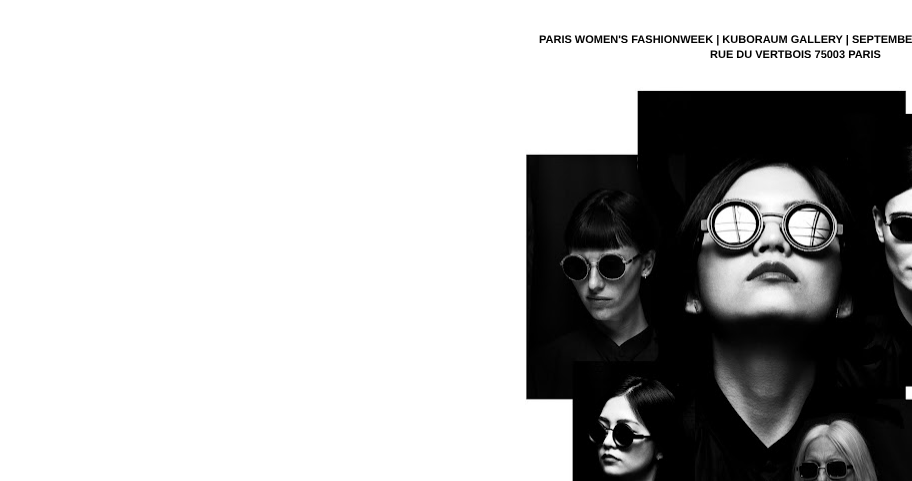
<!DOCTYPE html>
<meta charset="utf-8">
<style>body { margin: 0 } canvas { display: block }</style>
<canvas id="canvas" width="912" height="481"></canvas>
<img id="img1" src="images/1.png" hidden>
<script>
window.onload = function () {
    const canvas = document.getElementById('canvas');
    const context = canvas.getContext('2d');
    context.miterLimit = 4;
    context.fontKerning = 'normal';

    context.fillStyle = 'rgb(255, 255, 255)';
    context.fillRect(0, 0, 912, 481);
    context.drawImage(document.getElementById('img1'), 525, 87, 387, 394);
    context.font = 'bold 11px Liberation Sans';
    context.fillStyle = 'rgb(0, 0, 0)';
    context.fillText('PARIS WOMEN\'S FASHIONWEEK | KUBORAUM GALLERY | SEPTEMBE', 539, 43);
    context.fillText('RUE DU VERTBOIS 75003 PARIS', 710, 58);
};
</script>
